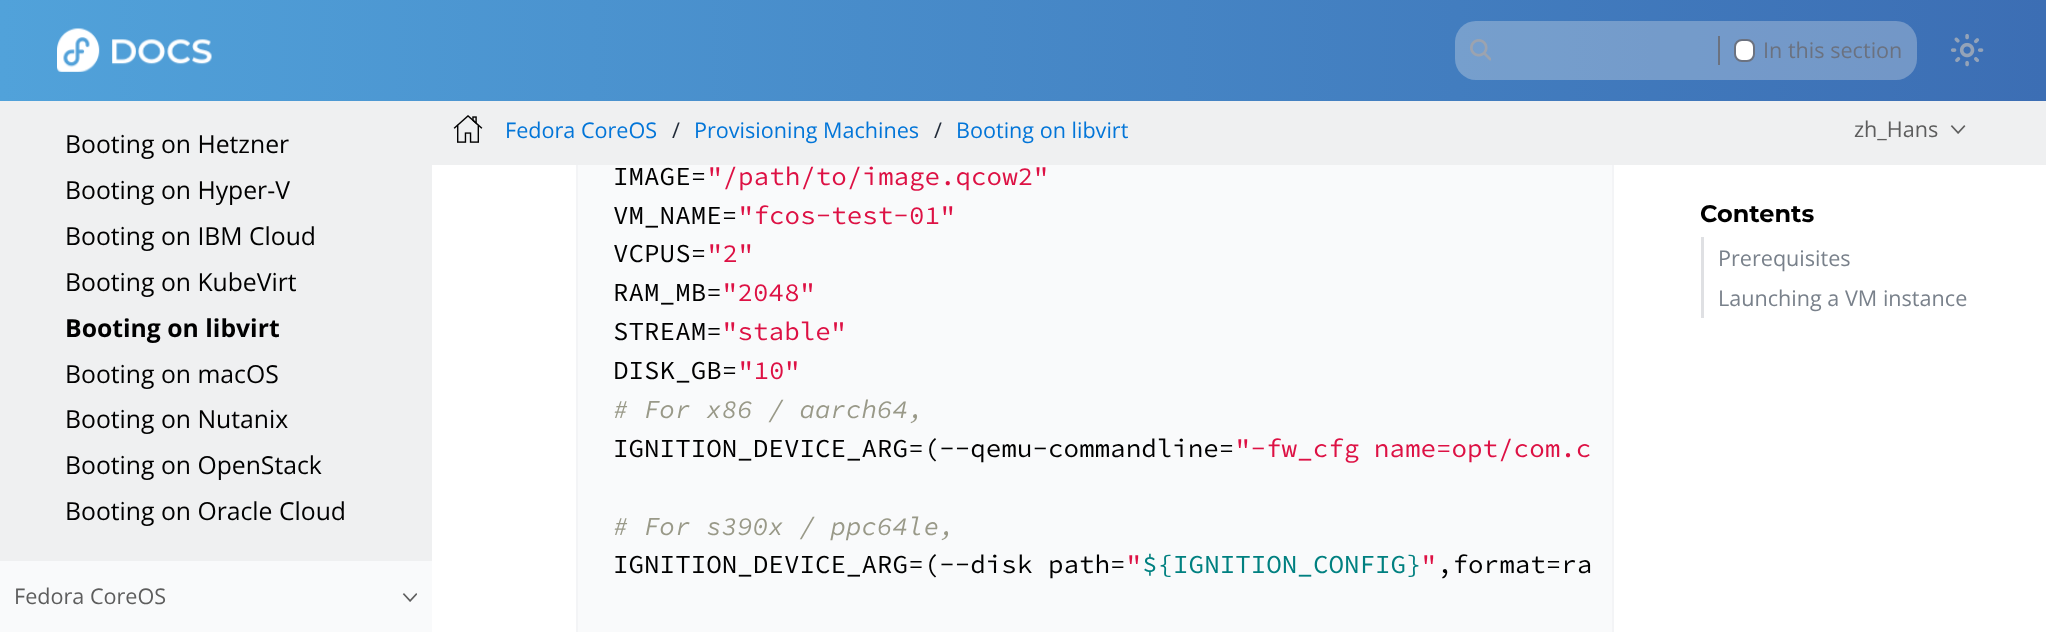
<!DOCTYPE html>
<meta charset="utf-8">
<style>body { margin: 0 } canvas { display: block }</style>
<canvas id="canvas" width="2046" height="632"></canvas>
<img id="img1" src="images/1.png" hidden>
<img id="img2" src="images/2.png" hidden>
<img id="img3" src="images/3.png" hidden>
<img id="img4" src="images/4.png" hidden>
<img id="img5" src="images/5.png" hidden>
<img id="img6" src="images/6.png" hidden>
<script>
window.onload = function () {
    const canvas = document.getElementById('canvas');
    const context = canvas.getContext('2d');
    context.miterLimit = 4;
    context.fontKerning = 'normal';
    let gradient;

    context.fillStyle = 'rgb(255, 255, 255)';
    context.fillRect(0, 0, 2046, 632);
    context.fillStyle = 'rgb(249, 250, 251)';
    context.fillRect(578, 165, 1034, 467);
    context.strokeStyle = 'rgb(243, 244, 246)';
    context.lineWidth = 2;
    context.strokeRect(577, 97, 1036, 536);
    gradient = context.createLinearGradient(2046, 50, 0, 50);
    gradient.addColorStop(0, 'rgb(60, 110, 180)');
    gradient.addColorStop(1, 'rgb(81, 162, 218)');
    context.fillStyle = gradient;
    context.fillRect(0, 0, 2046, 101);
    context.drawImage(document.getElementById('img1'), 57, 28, 155, 44);
    context.fillStyle = 'rgba(239, 239, 239, 0.3)';
    context.beginPath();
    context.roundRect(1455, 21, 462, 59, 21);
    context.fill();
    context.drawImage(document.getElementById('img2'), 1470, 39, 21, 22);
    context.fillStyle = 'rgb(107, 114, 128)';
    context.fillRect(1718, 36, 2, 29);
    context.fillStyle = 'rgb(255, 255, 255)';
    context.beginPath();
    context.roundRect(1735, 40, 19, 21, 7);
    context.fill();
    context.strokeStyle = 'rgb(107, 114, 128)';
    context.stroke();
    context.drawImage(document.getElementById('img3'), 1950, 34, 34, 33);
    context.fillStyle = 'rgb(239, 240, 241)';
    context.fillRect(0, 101, 432, 460);
    context.fillStyle = 'rgb(249, 250, 251)';
    context.fillRect(0, 561, 432, 71);
    context.drawImage(document.getElementById('img4'), 402, 593, 15, 9);
    context.fillStyle = 'rgb(239, 240, 241)';
    context.fillRect(432, 101, 1614, 64);
    context.drawImage(document.getElementById('img5'), 453, 115, 30, 28);
    context.drawImage(document.getElementById('img6'), 1950, 125, 16, 9);
    context.fillStyle = 'rgb(223, 224, 227)';
    context.fillRect(1701, 237, 3, 81);
    context.font = '21.6px Open Sans';
    context.fillStyle = 'rgb(107, 114, 128)';
    context.fillText('In this section', 1763, 58);
    context.font = '24.75px Open Sans';
    context.fillStyle = 'rgb(0, 0, 0)';
    context.fillText('Booting on Hetzner', 65, 153);
    context.fillText('Booting on Hyper-V', 65, 199);
    context.fillText('Booting on IBM Cloud', 65, 245);
    context.fillText('Booting on KubeVirt', 65, 291);
    context.font = 'bold 24.75px Open Sans';
    context.fillText('Booting on libvirt', 65, 337);
    context.font = '24.75px Open Sans';
    context.fillText('Booting on macOS', 65, 383);
    context.fillText('Booting on Nutanix', 65, 428);
    context.fillText('Booting on OpenStack', 65, 474);
    context.fillText('Booting on Oracle Cloud', 65, 520);
    context.font = '21.6px Open Sans';
    context.fillStyle = 'rgb(93, 93, 93)';
    context.fillText('Fedora CoreOS', 14, 604);
    context.fillStyle = 'rgb(2, 117, 216)';
    context.fillText('Fedora CoreOS', 505, 138);
    context.fillStyle = 'rgb(31, 41, 55)';
    context.fillText('/', 672, 138);
    context.fillStyle = 'rgb(2, 117, 216)';
    context.fillText('Provisioning Machines', 694, 138);
    context.fillStyle = 'rgb(31, 41, 55)';
    context.fillText('/', 934, 138);
    context.fillStyle = 'rgb(2, 117, 216)';
    context.fillText('Booting on libvirt', 956, 138);
    context.fillStyle = 'rgb(93, 93, 93)';
    context.fillText('zh_Hans', 1854, 137);
    context.font = '25.9px Source Code Pro';
    context.fillStyle = 'rgb(0, 0, 0)';
    context.fillText('IMAGE=', 613, 185);
    context.fillStyle = 'rgb(221, 17, 68)';
    context.fillText('"/path/to/image.qcow2"', 707, 185);
    context.fillStyle = 'rgb(0, 0, 0)';
    context.fillText('VM_NAME=', 613, 224);
    context.fillStyle = 'rgb(221, 17, 68)';
    context.fillText('"fcos-test-01"', 738, 224);
    context.fillStyle = 'rgb(0, 0, 0)';
    context.fillText('VCPUS=', 613, 262);
    context.fillStyle = 'rgb(221, 17, 68)';
    context.fillText('"2"', 707, 262);
    context.fillStyle = 'rgb(0, 0, 0)';
    context.fillText('RAM_MB=', 613, 301);
    context.fillStyle = 'rgb(221, 17, 68)';
    context.fillText('"2048"', 722, 301);
    context.fillStyle = 'rgb(0, 0, 0)';
    context.fillText('STREAM=', 613, 340);
    context.fillStyle = 'rgb(221, 17, 68)';
    context.fillText('"stable"', 722, 340);
    context.fillStyle = 'rgb(0, 0, 0)';
    context.fillText('DISK_GB=', 613, 379);
    context.fillStyle = 'rgb(221, 17, 68)';
    context.fillText('"10"', 738, 379);
    context.font = 'italic 25.9px Source Code Pro';
    context.fillStyle = 'rgb(153, 153, 136)';
    context.fillText('# For x86 / aarch64,', 613, 418);
    context.font = '25.9px Source Code Pro';
    context.fillStyle = 'rgb(0, 0, 0)';
    context.fillText('IGNITION_DEVICE_ARG=(--qemu-commandline=', 613, 457);
    context.wordSpacing = '-1px';
    context.fillStyle = 'rgb(221, 17, 68)';
    context.fillText('"-fw_cfg name=opt/com.c', 1235, 457);
    context.wordSpacing = '0px';
    context.font = 'italic 25.9px Source Code Pro';
    context.fillStyle = 'rgb(153, 153, 136)';
    context.fillText('# For s390x / ppc64le,', 613, 535);
    context.font = '25.9px Source Code Pro';
    context.fillStyle = 'rgb(0, 0, 0)';
    context.fillText('IGNITION_DEVICE_ARG=(--disk path=', 613, 573);
    context.fillStyle = 'rgb(221, 17, 68)';
    context.fillText('"', 1126, 573);
    context.fillStyle = 'rgb(0, 128, 128)';
    context.fillText('${IGNITION_CONFIG}', 1142, 573);
    context.fillStyle = 'rgb(221, 17, 68)';
    context.fillText('"', 1421, 573);
    context.fillStyle = 'rgb(0, 0, 0)';
    context.fillText(',format=ra', 1437, 573);
    context.font = 'bold 24px Montserrat';
    context.fillText('Contents', 1700, 222);
    context.font = '21.6px Open Sans';
    context.fillStyle = 'rgb(121, 129, 139)';
    context.fillText('Prerequisites', 1718, 266);
    context.fillText('Launching a VM instance', 1718, 306);
};
</script>
